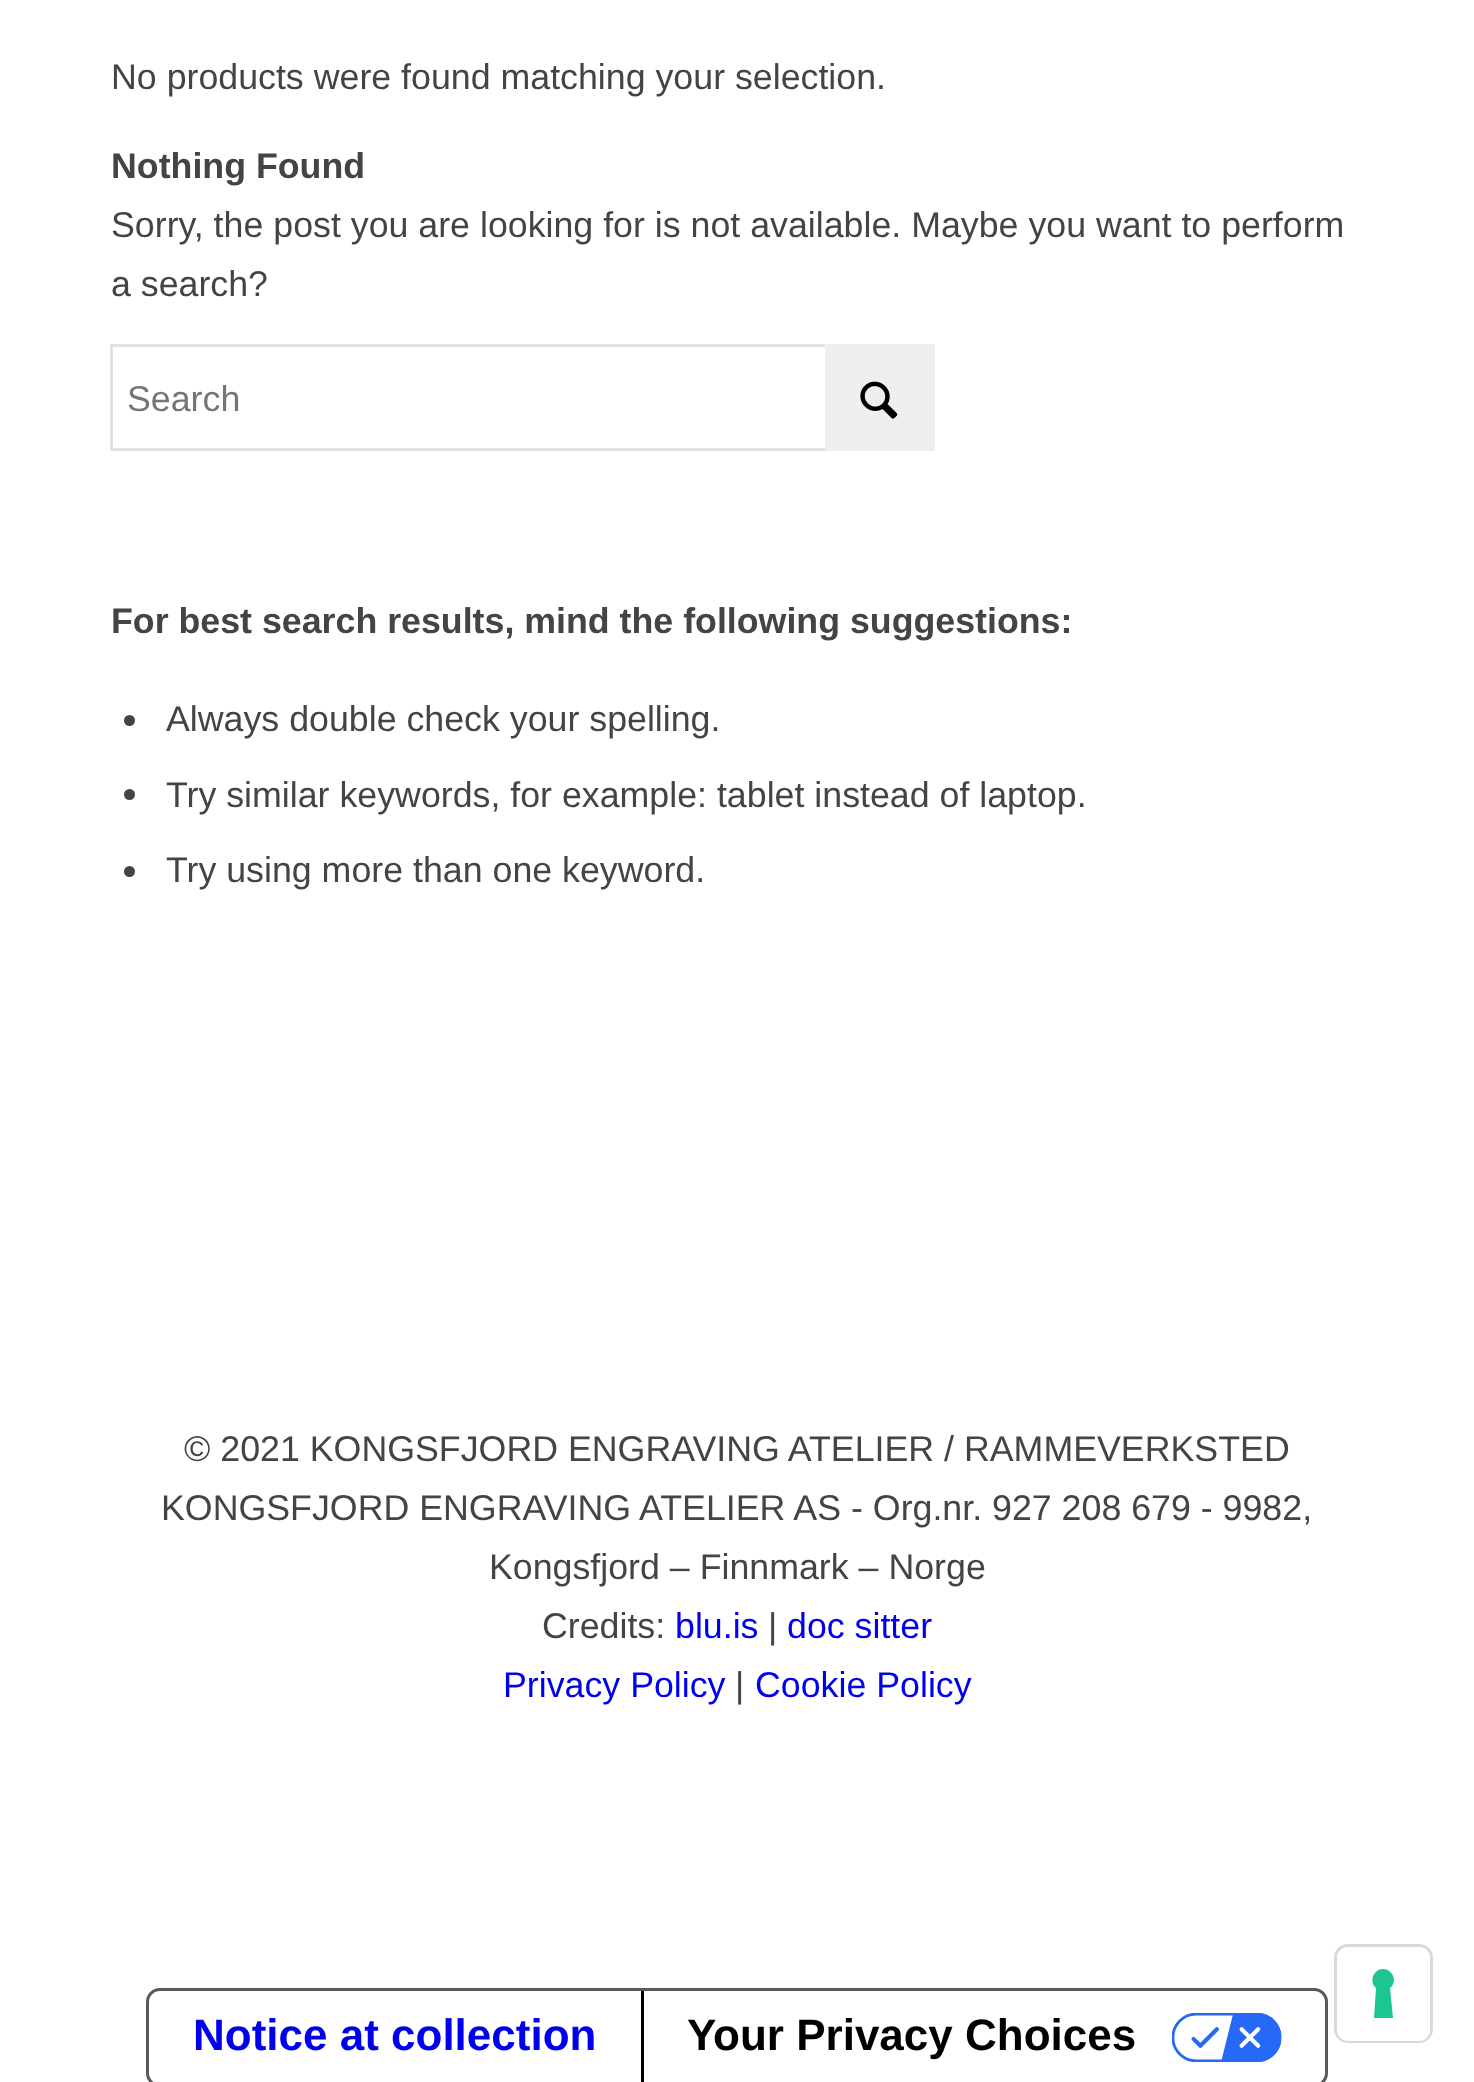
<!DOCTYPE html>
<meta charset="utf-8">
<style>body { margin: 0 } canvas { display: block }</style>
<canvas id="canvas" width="1474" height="2082"></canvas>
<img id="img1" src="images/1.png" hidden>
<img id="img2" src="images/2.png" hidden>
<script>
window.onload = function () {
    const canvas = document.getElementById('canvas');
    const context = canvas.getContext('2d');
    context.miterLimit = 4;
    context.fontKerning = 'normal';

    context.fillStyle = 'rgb(255, 255, 255)';
    context.fillRect(0, 0, 1474, 2082);
    context.strokeStyle = 'rgb(225, 225, 225)';
    context.lineWidth = 3;
    context.strokeRect(111.5, 345.5, 822, 104);
    context.fillStyle = 'rgb(239, 239, 239)';
    context.fillRect(825, 344, 110, 107);
    context.drawImage(document.getElementById('img1'), 860, 381, 38, 38);
    context.fillStyle = 'rgb(68, 68, 68)';
    context.beginPath();
    context.arc(129.5, 720.5, 5.5, 0, 2 * Math.PI);
    context.fill();
    context.beginPath();
    context.arc(129.5, 794.5, 5.5, 0, 2 * Math.PI);
    context.fill();
    context.beginPath();
    context.arc(129.5, 871.5, 5.5, 0, 2 * Math.PI);
    context.fill();
    context.beginPath();
    context.roundRect(147.5, 1989.5, 1179, 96, 12.5);
    context.strokeStyle = 'rgb(89, 89, 89)';
    context.stroke();
    context.fillStyle = 'rgb(0, 0, 0)';
    context.fillRect(641, 1991, 3, 91);
    context.drawImage(document.getElementById('img2'), 1172, 2013, 110, 49);
    context.beginPath();
    context.roundRect(1335.5, 1945.5, 96, 96, 12.5);
    context.strokeStyle = 'rgb(217, 217, 217)';
    context.stroke();
    context.fillStyle = 'rgb(255, 255, 255)';
    context.beginPath();
    context.roundRect(1337, 1947, 93, 94, 11);
    context.fill();
    context.fillStyle = 'rgb(28, 198, 145)';
    context.beginPath();
    context.moveTo(1383, 1969);
    context.bezierCurveTo(1393, 1969, 1398, 1982, 1390, 1988);
    context.lineTo(1393, 2018);
    context.lineTo(1374, 2018);
    context.lineTo(1376, 1988);
    context.bezierCurveTo(1369, 1982, 1373, 1969, 1383, 1969);
    context.closePath();
    context.fill('evenodd');
    context.font = '35.75px Liberation Sans';
    context.fillStyle = 'rgb(68, 68, 68)';
    context.fillText('No products were found matching your selection.', 111, 89);
    context.font = 'bold 35.75px Liberation Sans';
    context.fillText('Nothing Found', 111, 178);
    context.font = '35.75px Liberation Sans';
    context.fillText('Sorry, the post you are looking for is not available. Maybe you want to perform', 111, 237);
    context.fillText('a search?', 111, 296);
    context.fillStyle = 'rgb(117, 117, 117)';
    context.fillText('Search', 127, 411);
    context.font = 'bold 35.75px Liberation Sans';
    context.fillStyle = 'rgb(68, 68, 68)';
    context.fillText('For best search results, mind the following suggestions:', 111, 633);
    context.font = '35.75px Liberation Sans';
    context.fillText('Always double check your spelling.', 166, 731);
    context.fillText('Try similar keywords, for example: tablet instead of laptop.', 166, 807);
    context.fillText('Try using more than one keyword.', 166, 882);
    context.fillText('© 2021 KONGSFJORD ENGRAVING ATELIER / RAMMEVERKSTED', 184, 1461);
    context.fillText('KONGSFJORD ENGRAVING ATELIER AS - Org.nr. 927 208 679 - 9982,', 161, 1520);
    context.fillText('Kongsfjord – Finnmark – Norge', 489, 1579);
    context.fillText('Credits:', 542, 1638);
    context.fillStyle = 'rgb(0, 0, 238)';
    context.fillText('blu.is', 675, 1638);
    context.fillStyle = 'rgb(68, 68, 68)';
    context.fillText('|', 768, 1638);
    context.fillStyle = 'rgb(0, 0, 238)';
    context.fillText('doc sitter', 787, 1638);
    context.fillText('Privacy Policy', 503, 1697);
    context.fillStyle = 'rgb(68, 68, 68)';
    context.fillText('|', 735, 1697);
    context.fillStyle = 'rgb(0, 0, 238)';
    context.fillText('Cookie Policy', 755, 1697);
    context.font = 'bold 44px Liberation Sans';
    context.fillText('Notice at collection', 193, 2050);
    context.fillStyle = 'rgb(0, 0, 0)';
    context.fillText('Your Privacy Choices', 687, 2050);
};
</script>
